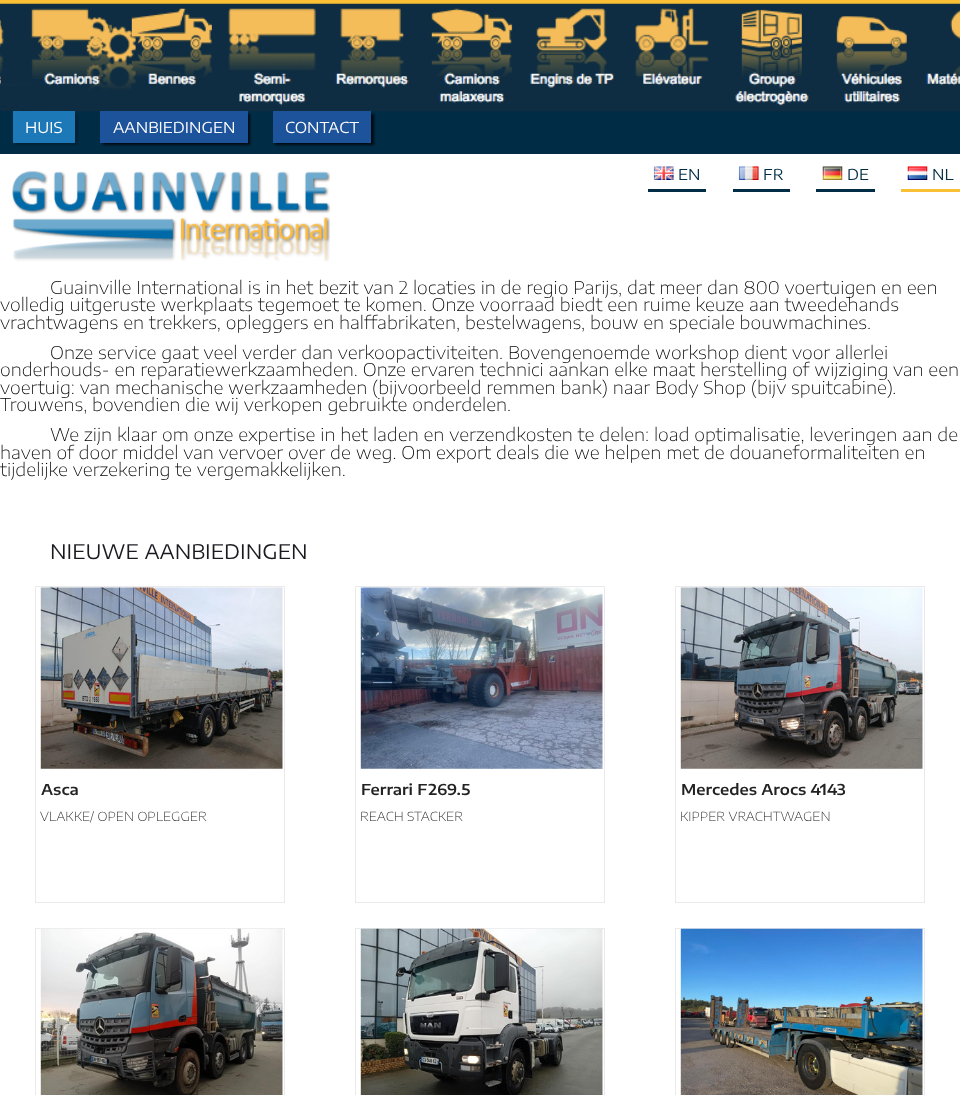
<!DOCTYPE html>
<meta charset="utf-8">
<style>body { margin: 0 } canvas { display: block }</style>
<canvas id="canvas" width="960" height="1095"></canvas>
<img id="img1" src="images/1.png" hidden>
<img id="img2" src="images/2.png" hidden>
<img id="img3" src="images/3.png" hidden>
<img id="img4" src="images/4.png" hidden>
<img id="img5" src="images/5.png" hidden>
<img id="img6" src="images/6.png" hidden>
<img id="img7" src="images/7.png" hidden>
<img id="img8" src="images/8.png" hidden>
<img id="img9" src="images/9.png" hidden>
<img id="img10" src="images/10.png" hidden>
<img id="img11" src="images/11.png" hidden>
<img id="img12" src="images/12.png" hidden>
<script>
window.onload = function () {
    const canvas = document.getElementById('canvas');
    const context = canvas.getContext('2d');
    context.miterLimit = 4;
    context.fontKerning = 'normal';

    context.fillStyle = 'rgb(255, 255, 255)';
    context.fillRect(0, 0, 960, 1095);
    context.fillStyle = 'rgb(0, 44, 69)';
    context.fillRect(0, 111, 960, 43);
    context.fillStyle = 'rgb(249, 192, 53)';
    context.fillRect(0, 0, 960, 4);
    context.drawImage(document.getElementById('img1'), 0, 3, 960, 109);
    context.fillStyle = 'rgba(0, 0, 0, 0.2)';
    context.filter = 'blur(1px)';
    context.beginPath();
    context.rect(15, 114, 63, 31);
    context.fill();
    context.filter = 'none';
    context.fillStyle = 'rgb(29, 120, 183)';
    context.fillRect(13, 111, 62, 32);
    context.fillStyle = 'rgba(0, 0, 0, 0.75)';
    context.filter = 'blur(1px)';
    context.beginPath();
    context.rect(103, 114, 147, 31);
    context.fill();
    context.filter = 'none';
    context.fillStyle = 'rgb(29, 83, 155)';
    context.fillRect(100, 111, 148, 32);
    context.fillStyle = 'rgba(0, 0, 0, 0.75)';
    context.filter = 'blur(1px)';
    context.beginPath();
    context.rect(275, 114, 99, 31);
    context.fill();
    context.filter = 'none';
    context.fillStyle = 'rgb(29, 83, 155)';
    context.fillRect(273, 111, 98, 32);
    context.drawImage(document.getElementById('img2'), 12, 170, 318, 92);
    context.fillStyle = 'rgb(0, 44, 69)';
    context.fillRect(648, 189, 58, 3);
    context.drawImage(document.getElementById('img3'), 653, 166, 21, 14);
    context.fillRect(733, 189, 57, 3);
    context.drawImage(document.getElementById('img4'), 738, 166, 21, 14);
    context.fillRect(816, 189, 59, 3);
    context.drawImage(document.getElementById('img5'), 822, 166, 21, 14);
    context.fillStyle = 'rgb(249, 192, 53)';
    context.fillRect(901, 189, 59, 3);
    context.drawImage(document.getElementById('img6'), 907, 166, 21, 14);
    context.strokeStyle = 'rgb(234, 234, 234)';
    context.strokeRect(35.5, 586.5, 249, 316);
    context.drawImage(document.getElementById('img7'), 40, 587, 243, 182);
    context.strokeRect(355.5, 586.5, 249, 316);
    context.drawImage(document.getElementById('img8'), 360, 587, 243, 182);
    context.strokeRect(675.5, 586.5, 249, 316);
    context.drawImage(document.getElementById('img9'), 680, 587, 243, 182);
    context.strokeRect(35.5, 928.5, 249, 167);
    context.drawImage(document.getElementById('img10'), 40, 928, 243, 167);
    context.strokeRect(355.5, 928.5, 249, 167);
    context.drawImage(document.getElementById('img11'), 360, 928, 243, 167);
    context.strokeRect(675.5, 928.5, 249, 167);
    context.drawImage(document.getElementById('img12'), 680, 928, 243, 167);
    context.font = '15px Encode Sans Expanded';
    context.fillStyle = 'rgb(255, 255, 255)';
    context.fillText('HUIS', 25, 133);
    context.fillText('AANBIEDINGEN', 113, 133);
    context.fillText('CONTACT', 285, 133);
    context.fillStyle = 'rgb(0, 44, 69)';
    context.fillText('EN', 678, 180);
    context.fillText('FR', 763, 180);
    context.fillText('DE', 847, 180);
    context.fillText('NL', 932, 180);
    context.font = '200 17.5px Encode Sans Expanded';
    context.fillStyle = 'rgb(0, 0, 0)';
    context.fillText('Guainville International is in het bezit van 2 locaties in de regio Parijs, dat meer dan 800 voertuigen en een', 50, 294);
    context.fillText('volledig uitgeruste werkplaats tegemoet te komen. Onze voorraad biedt een ruime keuze aan tweedehands', 0, 311);
    context.fillText('vrachtwagens en trekkers, opleggers en halffabrikaten, bestelwagens, bouw en speciale bouwmachines.', 0, 329);
    context.fillText('Onze service gaat veel verder dan verkoopactiviteiten. Bovengenoemde workshop dient voor allerlei', 50, 359);
    context.fillText('onderhouds- en reparatiewerkzaamheden. Onze ervaren technici aankan elke maat herstelling of wijziging van een', 0, 376);
    context.fillText('voertuig: van mechanische werkzaamheden (bijvoorbeeld remmen bank) naar Body Shop (bijv spuitcabine).', 0, 394);
    context.fillText('Trouwens, bovendien die wij verkopen gebruikte onderdelen.', 0, 411);
    context.fillText('We zijn klaar om onze expertise in het laden en verzendkosten te delen: load optimalisatie, leveringen aan de', 50, 441);
    context.fillText('haven of door middel van vervoer over de weg. Om export deals die we helpen met de douaneformaliteiten en', 0, 459);
    context.fillText('tijdelijke verzekering te vergemakkelijken.', 0, 476);
    context.font = '20px Encode Sans Expanded';
    context.fillStyle = 'rgb(27, 25, 32)';
    context.fillText('NIEUWE AANBIEDINGEN', 50, 559);
    context.font = '600 15px Encode Sans Expanded';
    context.fillStyle = 'rgb(34, 34, 34)';
    context.fillText('Asca', 41, 795);
    context.font = '200 12.5px Encode Sans Expanded';
    context.fillText('VLAKKE/ OPEN OPLEGGER', 40, 821);
    context.font = '600 15px Encode Sans Expanded';
    context.fillText('Ferrari F269.5', 361, 795);
    context.font = '200 12.5px Encode Sans Expanded';
    context.fillText('REACH STACKER', 360, 821);
    context.font = '600 15px Encode Sans Expanded';
    context.fillText('Mercedes Arocs 4143', 681, 795);
    context.font = '200 12.5px Encode Sans Expanded';
    context.fillText('KIPPER VRACHTWAGEN', 680, 821);
};
</script>
